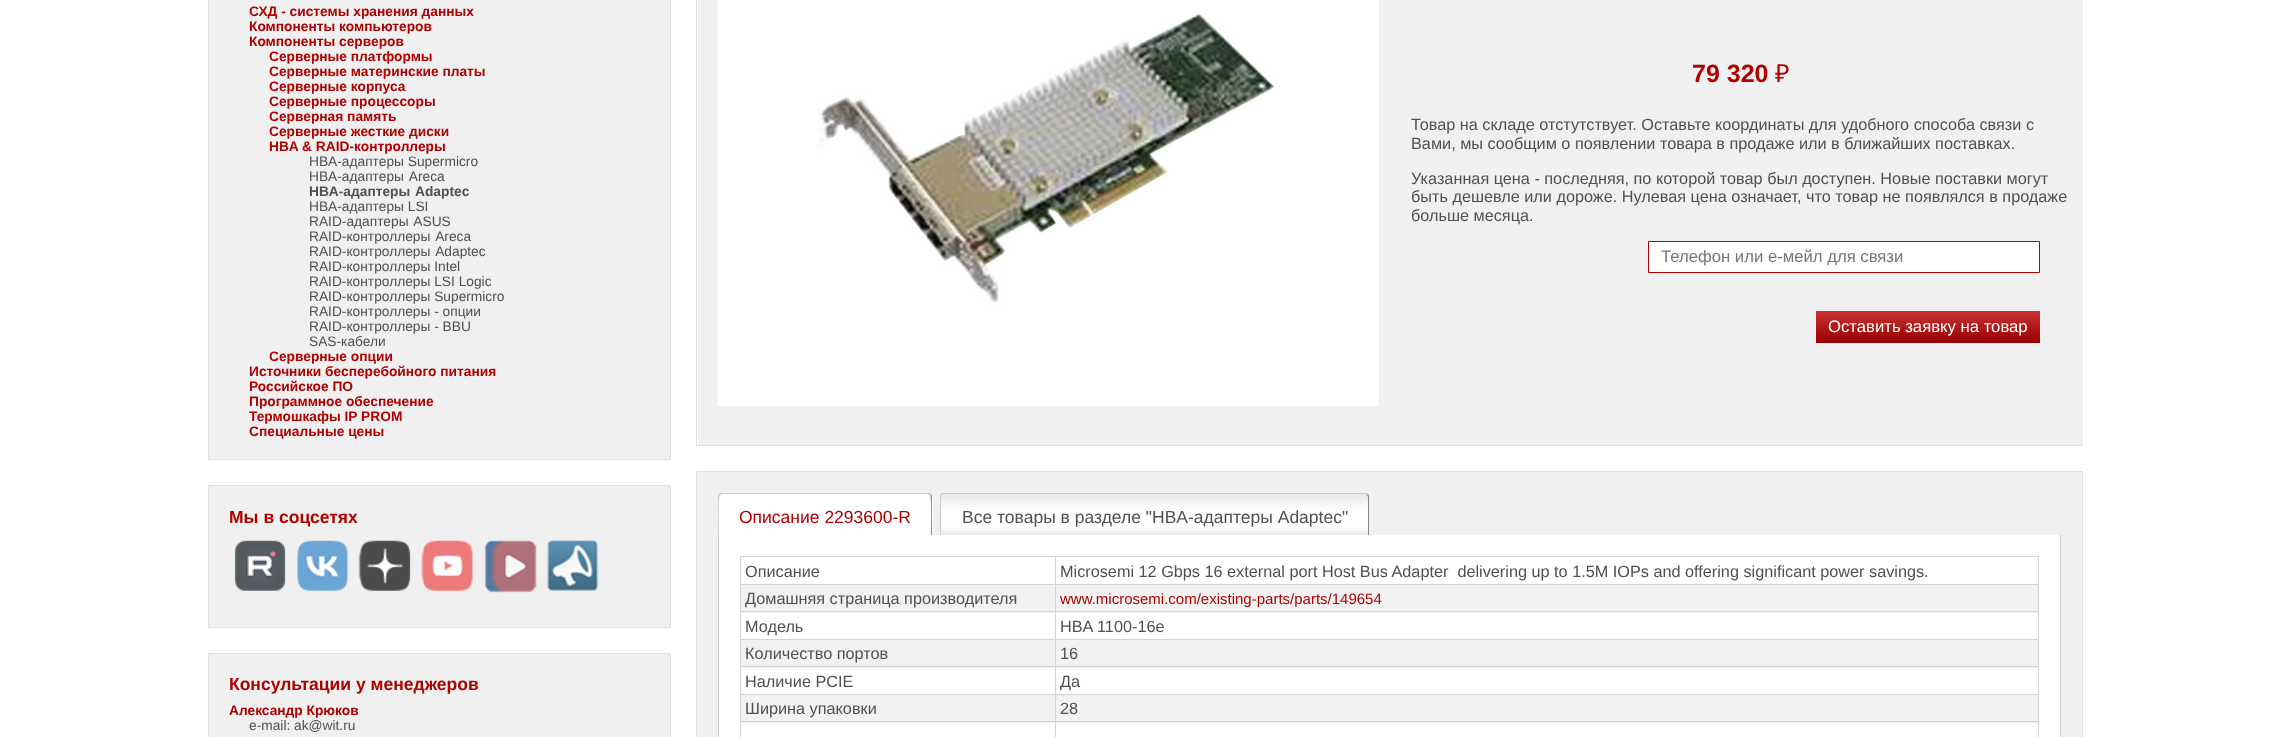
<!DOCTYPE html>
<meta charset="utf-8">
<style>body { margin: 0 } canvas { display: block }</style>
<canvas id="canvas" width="2290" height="737"></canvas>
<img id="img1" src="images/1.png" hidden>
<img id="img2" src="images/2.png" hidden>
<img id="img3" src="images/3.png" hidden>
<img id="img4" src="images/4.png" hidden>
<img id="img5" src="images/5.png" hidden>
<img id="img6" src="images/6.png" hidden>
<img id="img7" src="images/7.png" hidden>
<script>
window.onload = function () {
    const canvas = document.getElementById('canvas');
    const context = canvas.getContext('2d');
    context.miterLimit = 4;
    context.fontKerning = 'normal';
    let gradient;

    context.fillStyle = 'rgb(255, 255, 255)';
    context.fillRect(0, 0, 2290, 737);
    context.fillStyle = 'rgb(240, 240, 240)';
    context.beginPath();
    context.rect(208.5, -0.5, 462, 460);
    context.fill();
    context.strokeStyle = 'rgb(224, 224, 224)';
    context.stroke();
    context.beginPath();
    context.rect(208.5, 485.5, 462, 142);
    context.fill();
    context.stroke();
    context.drawImage(document.getElementById('img1'), 234, 540, 52, 51);
    context.drawImage(document.getElementById('img2'), 297, 540, 51, 51);
    context.drawImage(document.getElementById('img3'), 358, 540, 53, 51);
    context.drawImage(document.getElementById('img4'), 421, 540, 52, 51);
    context.drawImage(document.getElementById('img5'), 484, 540, 53, 53);
    context.drawImage(document.getElementById('img6'), 547, 539, 52, 52);
    context.beginPath();
    context.rect(208.5, 653.5, 462, 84);
    context.fill();
    context.stroke();
    context.save();
    context.beginPath();
    context.rect(208, 0, 1875, 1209);
    context.clip();
    context.strokeRect(696.5, -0.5, 1388, 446);
    context.restore();
    context.fillRect(698, 0, 1385, 445);
    context.drawImage(document.getElementById('img7'), 717, 0, 662, 406);
    context.fillStyle = 'rgb(255, 255, 255)';
    context.beginPath();
    context.rect(1648.5, 241.5, 391, 31);
    context.fill();
    context.strokeStyle = 'rgb(176, 0, 0)';
    context.stroke();
    gradient = context.createLinearGradient(1928, 311, 1928, 342);
    gradient.addColorStop(0, 'rgb(204, 51, 51)');
    gradient.addColorStop(1, 'rgb(153, 0, 0)');
    context.fillStyle = gradient;
    context.fillRect(1816, 311, 224, 32);
    context.fillStyle = 'rgb(240, 240, 240)';
    context.beginPath();
    context.rect(696.5, 471.5, 1386, 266);
    context.fill();
    context.strokeStyle = 'rgb(224, 224, 224)';
    context.stroke();
    context.fillStyle = 'rgb(255, 255, 255)';
    context.beginPath();
    context.roundRect(718, 493, 215, 42, [5, 5, 0, 0]);
    context.fill();
    context.save();
    context.beginPath();
    context.rect(718, 493, 1343, 42);
    context.clip();
    context.fillStyle = 'rgb(204, 204, 204)';
    context.beginPath();
    context.moveTo(722, 494);
    context.lineTo(720, 495);
    context.lineTo(719, 494);
    context.lineTo(721, 492);
    context.lineTo(929, 492);
    context.lineTo(931, 494);
    context.lineTo(930, 495);
    context.lineTo(928, 494);
    context.closePath();
    context.fill();
    context.restore();
    context.fillStyle = 'rgb(136, 136, 136)';
    context.beginPath();
    context.moveTo(931, 535);
    context.lineTo(932, 535);
    context.lineTo(932, 498);
    context.bezierCurveTo(932, 497, 932, 495, 931, 494);
    context.lineTo(930, 495);
    context.bezierCurveTo(932, 497, 931, 530, 931, 535);
    context.closePath();
    context.fill();
    context.fillStyle = 'rgb(204, 204, 204)';
    context.beginPath();
    context.moveTo(718, 535);
    context.lineTo(719, 535);
    context.bezierCurveTo(719, 530, 718, 497, 720, 495);
    context.lineTo(719, 494);
    context.bezierCurveTo(718, 495, 718, 497, 718, 498);
    context.closePath();
    context.fill();
    context.save();
    context.beginPath();
    context.roundRect(940, 493, 429, 42, [5, 5, 0, 0]);
    context.clip();
    gradient = context.createLinearGradient(1154, 494, 1154, 535);
    gradient.addColorStop(0, 'rgb(232, 232, 232)');
    gradient.addColorStop(0.4, 'rgb(255, 255, 255)');
    gradient.addColorStop(0.8, 'rgb(255, 255, 255)');
    gradient.addColorStop(1, 'rgb(232, 232, 232)');
    context.fillStyle = gradient;
    context.fillRect(940, 494, 429, 41);
    context.restore();
    context.save();
    context.beginPath();
    context.rect(718, 493, 1343, 42);
    context.clip();
    context.beginPath();
    context.moveTo(945, 494);
    context.lineTo(942, 495);
    context.lineTo(941, 494);
    context.bezierCurveTo(956, 475, 989, 492, 1013, 492);
    context.lineTo(1366, 492);
    context.lineTo(1368, 494);
    context.lineTo(1367, 495);
    context.lineTo(1364, 494);
    context.closePath();
    context.fill();
    context.restore();
    context.fillStyle = 'rgb(136, 136, 136)';
    context.beginPath();
    context.moveTo(1367, 495);
    context.lineTo(1368, 494);
    context.lineTo(1369, 496);
    context.lineTo(1369, 535);
    context.lineTo(1368, 535);
    context.lineTo(1368, 498);
    context.bezierCurveTo(1368, 496, 1367, 495, 1367, 495);
    context.closePath();
    context.fill();
    context.fillStyle = 'rgb(204, 204, 204)';
    context.beginPath();
    context.moveTo(940, 535);
    context.lineTo(941, 535);
    context.lineTo(941, 498);
    context.bezierCurveTo(941, 496, 942, 495, 942, 495);
    context.lineTo(941, 494);
    context.bezierCurveTo(940, 495, 940, 496, 940, 498);
    context.closePath();
    context.fill();
    context.fillStyle = 'rgb(255, 255, 255)';
    context.fillRect(719, 535, 1341, 202);
    context.fillStyle = 'rgb(204, 204, 204)';
    context.fillRect(2060, 535, 1, 202);
    context.fillRect(718, 535, 1, 202);
    context.fillStyle = 'rgb(211, 211, 211)';
    context.fillRect(1055, 556, 984, 1);
    context.fillRect(1055, 584, 984, 1);
    context.fillStyle = 'rgb(242, 242, 242)';
    context.fillRect(741, 585, 1297, 28);
    context.fillStyle = 'rgb(211, 211, 211)';
    context.fillRect(1055, 611, 984, 1);
    context.fillRect(1055, 639, 984, 1);
    context.fillStyle = 'rgb(242, 242, 242)';
    context.fillRect(741, 640, 1297, 28);
    context.fillStyle = 'rgb(211, 211, 211)';
    context.fillRect(1055, 666, 984, 1);
    context.fillRect(1055, 694, 984, 1);
    context.fillStyle = 'rgb(242, 242, 242)';
    context.fillRect(741, 695, 1297, 28);
    context.fillStyle = 'rgb(211, 211, 211)';
    context.fillRect(1055, 721, 984, 1);
    context.fillRect(1055, 721, 1, 16);
    context.fillRect(740, 721, 316, 1);
    context.fillRect(1055, 694, 1, 29);
    context.fillRect(740, 694, 316, 1);
    context.fillRect(1055, 666, 1, 29);
    context.fillRect(740, 666, 316, 1);
    context.fillRect(1055, 639, 1, 29);
    context.fillRect(740, 639, 316, 1);
    context.fillRect(1055, 611, 1, 29);
    context.fillRect(740, 611, 316, 1);
    context.fillRect(1055, 584, 1, 29);
    context.fillRect(740, 584, 316, 1);
    context.fillRect(1055, 556, 1, 29);
    context.fillRect(740, 556, 316, 1);
    context.fillRect(740, 721, 1, 16);
    context.fillRect(740, 694, 1, 29);
    context.fillRect(740, 666, 1, 29);
    context.fillRect(740, 639, 1, 29);
    context.fillRect(740, 611, 1, 29);
    context.fillRect(740, 584, 1, 29);
    context.fillRect(740, 556, 1, 29);
    context.fillRect(2038, 721, 1, 16);
    context.fillRect(2038, 694, 1, 29);
    context.fillRect(2038, 666, 1, 29);
    context.fillRect(2038, 639, 1, 29);
    context.fillRect(2038, 611, 1, 29);
    context.fillRect(2038, 584, 1, 29);
    context.fillRect(2038, 556, 1, 29);
    context.font = 'bold 13.75px Liberation Sans';
    context.fillStyle = 'rgb(176, 0, 0)';
    context.fillText('СХД - системы хранения данных', 249, 16);
    context.fillText('Компоненты компьютеров', 249, 31);
    context.fillText('Компоненты серверов', 249, 46);
    context.fillText('Серверные платформы', 269, 61);
    context.fillText('Серверные материнские платы', 269, 76);
    context.fillText('Серверные корпуса', 269, 91);
    context.fillText('Серверные процессоры', 269, 106);
    context.fillText('Серверная память', 269, 121);
    context.fillText('Серверные жесткие диски', 269, 136);
    context.fillText('HBA & RAID-контроллеры', 269, 151);
    context.font = '13.75px Liberation Sans';
    context.fillStyle = 'rgb(80, 80, 80)';
    context.fillText('HBA-адаптеры Supermicro', 309, 166);
    context.wordSpacing = '1px';
    context.fillText('HBA-адаптеры Areca', 309, 181);
    context.font = 'bold 13.75px Liberation Sans';
    context.fillText('HBA-адаптеры Adaptec', 309, 196);
    context.wordSpacing = '0px';
    context.font = '13.75px Liberation Sans';
    context.fillText('HBA-адаптеры LSI', 309, 211);
    context.wordSpacing = '1px';
    context.fillText('RAID-адаптеры ASUS', 309, 226);
    context.fillText('RAID-контроллеры Areca', 309, 241);
    context.fillText('RAID-контроллеры Adaptec', 309, 256);
    context.wordSpacing = '0px';
    context.fillText('RAID-контроллеры Intel', 309, 271);
    context.fillText('RAID-контроллеры LSI Logic', 309, 286);
    context.fillText('RAID-контроллеры Supermicro', 309, 301);
    context.fillText('RAID-контроллеры - опции', 309, 316);
    context.fillText('RAID-контроллеры - BBU', 309, 331);
    context.fillText('SAS-кабели', 309, 346);
    context.font = 'bold 13.75px Liberation Sans';
    context.fillStyle = 'rgb(176, 0, 0)';
    context.fillText('Серверные опции', 269, 361);
    context.fillText('Источники бесперебойного питания', 249, 376);
    context.fillText('Российское ПО', 249, 391);
    context.fillText('Программное обеспечение', 249, 406);
    context.fillText('Термошкафы IP PROM', 249, 421);
    context.fillText('Специальные цены', 249, 436);
    context.font = 'bold 17.5px Liberation Sans';
    context.fillText('Мы в соцсетях', 229, 523);
    context.fillText('Консультации у менеджеров', 229, 690);
    context.font = 'bold 13.75px Liberation Sans';
    context.fillText('Александр Крюков', 229, 715);
    context.font = '13.75px Liberation Sans';
    context.fillStyle = 'rgb(80, 80, 80)';
    context.fillText('e-mail: ak@wit.ru', 249, 730);
    context.font = 'bold 25px Liberation Sans';
    context.fillStyle = 'rgb(176, 0, 0)';
    context.fillText('79 320', 1692, 82);
    context.font = '25px Noto Sans';
    context.fillText('₽', 1775, 82);
    context.font = '16.25px Liberation Sans';
    context.fillStyle = 'rgb(80, 80, 80)';
    context.fillText('Товар на складе отстутствует. Оставьте координаты для удобного способа связи с', 1411, 130);
    context.fillText('Вами, мы сообщим о появлении товара в продаже или в ближайших поставках.', 1411, 149);
    context.fillText('Указанная цена - последняя, по которой товар был доступен. Новые поставки могут', 1411, 184);
    context.fillText('быть дешевле или дороже. Нулевая цена означает, что товар не появлялся в продаже', 1411, 202);
    context.fillText('больше месяца.', 1411, 221);
    context.font = '16.7px Liberation Sans';
    context.fillStyle = 'rgb(117, 117, 117)';
    context.fillText('Телефон или е-мейл для связи', 1661, 262);
    context.fillStyle = 'rgb(255, 255, 255)';
    context.fillText('Оставить заявку на товар', 1828, 332);
    context.font = '17.5px Liberation Sans';
    context.fillStyle = 'rgb(176, 0, 0)';
    context.fillText('Описание 2293600-R', 739, 523);
    context.fillStyle = 'rgb(80, 80, 80)';
    context.fillText('Все товары в разделе "HBA-адаптеры Adaptec"', 962, 523);
    context.font = '16.25px Liberation Sans';
    context.fillText('Описание', 745, 577);
    context.fillText('Microsemi 12 Gbps 16 external port Host Bus Adapter  delivering up to 1.5M IOPs and offering significant power savings.', 1060, 577);
    context.fillText('Домашняя страница производителя', 745, 604);
    context.font = '15px Liberation Sans';
    context.fillStyle = 'rgb(176, 0, 0)';
    context.fillText('www.microsemi.com/existing-parts/parts/149654', 1060, 604);
    context.font = '16.25px Liberation Sans';
    context.fillStyle = 'rgb(80, 80, 80)';
    context.fillText('Модель', 745, 632);
    context.fillText('HBA 1100-16e', 1060, 632);
    context.fillText('Количество портов', 745, 659);
    context.fillText('16', 1060, 659);
    context.fillText('Наличие PCIE', 745, 687);
    context.fillText('Да', 1060, 687);
    context.fillText('Ширина упаковки', 745, 714);
    context.fillText('28', 1060, 714);
};
</script>
